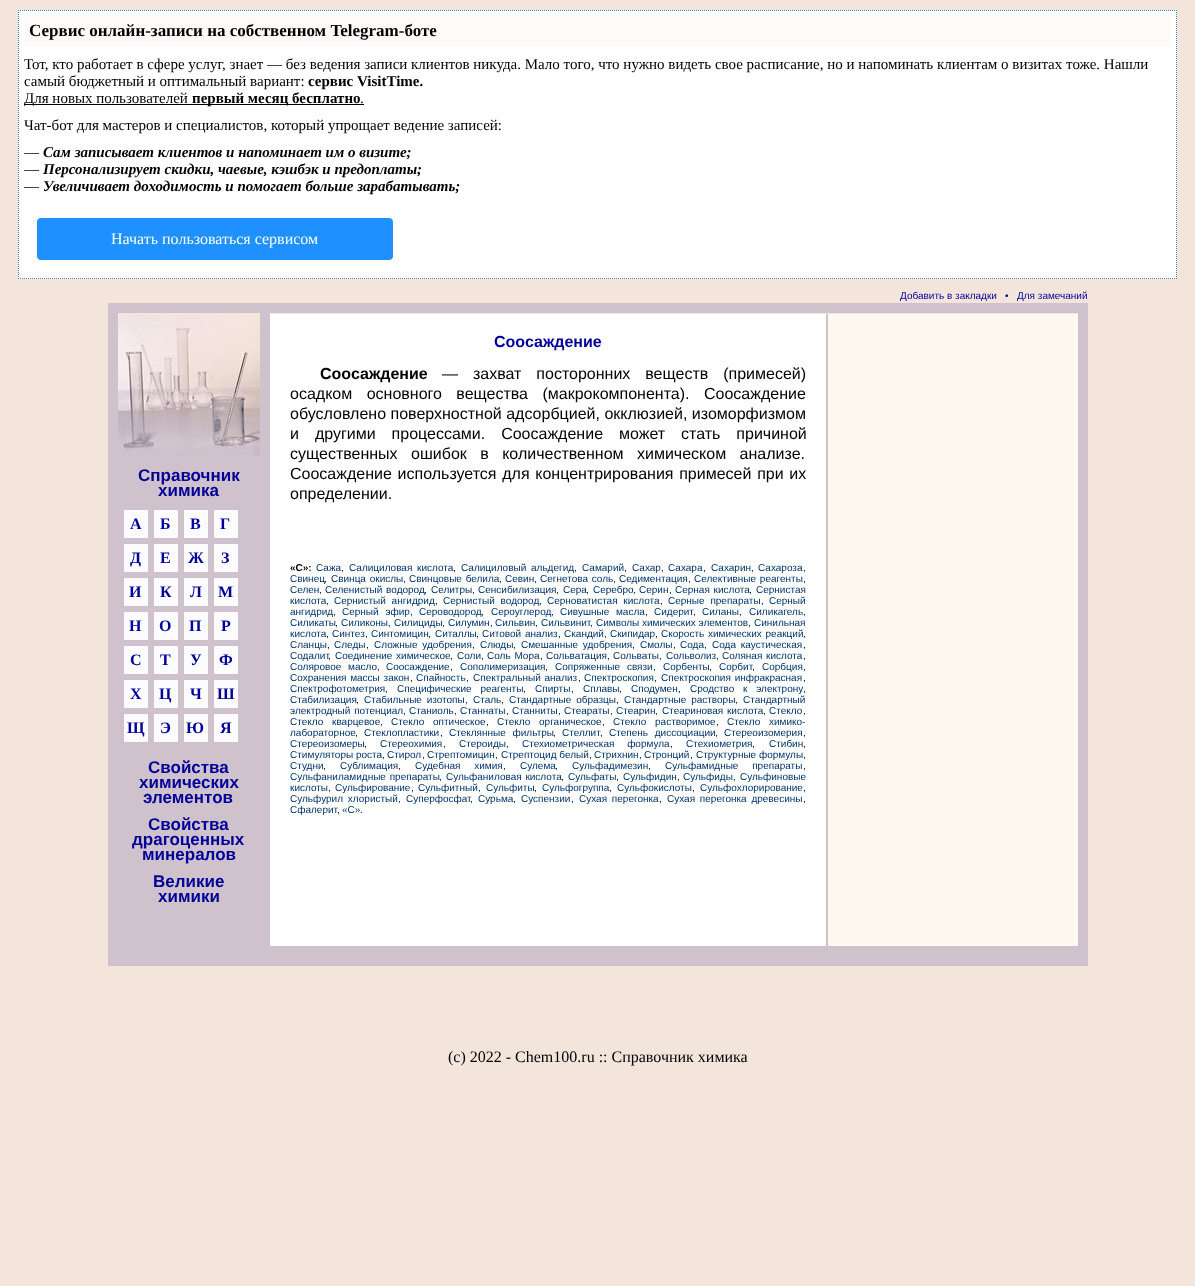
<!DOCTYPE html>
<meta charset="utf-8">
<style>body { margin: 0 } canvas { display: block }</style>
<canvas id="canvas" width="1195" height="1286"></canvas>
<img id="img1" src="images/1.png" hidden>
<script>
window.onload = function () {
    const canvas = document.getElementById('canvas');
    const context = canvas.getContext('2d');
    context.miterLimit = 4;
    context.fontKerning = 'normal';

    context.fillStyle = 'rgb(243, 229, 220)';
    context.fillRect(0, 0, 1195, 1286);
    context.fillStyle = 'rgb(255, 255, 255)';
    context.fillRect(18, 10, 1159, 269);
    context.beginPath();
    context.moveTo(18, 10.5);
    context.lineTo(1177, 10.5);
    context.strokeStyle = 'rgb(70, 130, 180)';
    context.setLineDash([1, 1]);
    context.stroke();
    context.beginPath();
    context.moveTo(1176.5, 10);
    context.lineTo(1176.5, 279);
    context.stroke();
    context.beginPath();
    context.moveTo(18, 278.5);
    context.lineTo(1177, 278.5);
    context.stroke();
    context.beginPath();
    context.moveTo(18.5, 10);
    context.lineTo(18.5, 279);
    context.stroke();
    context.fillStyle = 'rgb(255, 250, 250)';
    context.fillRect(24, 16, 1147, 30);
    context.fillStyle = 'rgb(0, 0, 0)';
    context.fillRect(24, 104, 340, 1);
    context.fillStyle = 'rgb(30, 144, 255)';
    context.beginPath();
    context.roundRect(36.5, 217.5, 357, 43, 4.5);
    context.fill();
    context.strokeStyle = 'rgb(255, 255, 255)';
    context.setLineDash([]);
    context.stroke();
    context.fillStyle = 'rgb(208, 194, 204)';
    context.fillRect(108, 303, 980, 663);
    context.fillStyle = 'rgb(255, 255, 255)';
    context.fillRect(270, 314, 556, 632);
    context.fillStyle = 'rgb(243, 229, 220)';
    context.fillRect(118, 313, 960, 1);
    context.fillStyle = 'rgb(208, 194, 204)';
    context.fillRect(260, 313, 10, 1);
    context.drawImage(document.getElementById('img1'), 118, 314, 142, 142);
    context.fillStyle = 'rgb(252, 252, 255)';
    context.fillRect(124, 510, 24, 28);
    context.fillRect(154, 510, 24, 28);
    context.fillRect(184, 510, 24, 28);
    context.fillRect(214, 510, 24, 28);
    context.fillRect(124, 544, 24, 28);
    context.fillRect(154, 544, 24, 28);
    context.fillRect(184, 544, 24, 28);
    context.fillRect(214, 544, 24, 28);
    context.fillRect(124, 578, 24, 28);
    context.fillRect(154, 578, 24, 28);
    context.fillRect(184, 578, 24, 28);
    context.fillRect(214, 578, 24, 28);
    context.fillRect(124, 612, 24, 28);
    context.fillRect(154, 612, 24, 28);
    context.fillRect(184, 612, 24, 28);
    context.fillRect(214, 612, 24, 28);
    context.fillRect(124, 646, 24, 28);
    context.fillRect(154, 646, 24, 28);
    context.fillRect(184, 646, 24, 28);
    context.fillRect(214, 646, 24, 28);
    context.fillRect(124, 680, 24, 28);
    context.fillRect(154, 680, 24, 28);
    context.fillRect(184, 680, 24, 28);
    context.fillRect(214, 680, 24, 28);
    context.fillRect(124, 714, 24, 28);
    context.fillRect(154, 714, 24, 28);
    context.fillRect(184, 714, 24, 28);
    context.fillRect(214, 714, 24, 28);
    context.fillStyle = 'rgb(255, 248, 240)';
    context.fillRect(828, 314, 250, 632);
    context.font = 'bold 17px Liberation Serif';
    context.fillStyle = 'rgb(0, 0, 0)';
    context.fillText('Сервис онлайн-записи на собственном Telegram-боте', 29, 36);
    context.font = '15px Liberation Serif';
    context.fillText('Тот, кто работает в сфере услуг, знает — без ведения записи клиентов никуда. Мало того, что нужно видеть свое расписание, но и напоминать клиентам о визитах тоже. Нашли', 24, 69);
    context.fillText('самый бюджетный и оптимальный вариант:', 24, 86);
    context.font = 'bold 15px Liberation Serif';
    context.fillText('сервис VisitTime.', 308, 86);
    context.font = '15px Liberation Serif';
    context.fillText('Для новых пользователей', 24, 103);
    context.font = 'bold 15px Liberation Serif';
    context.fillText('первый месяц бесплатно', 192, 103);
    context.font = '15px Liberation Serif';
    context.fillText('.', 360, 103);
    context.fillText('Чат-бот для мастеров и специалистов, который упрощает ведение записей:', 24, 130);
    context.fillText('—', 24, 157);
    context.font = 'italic bold 15px Liberation Serif';
    context.fillText('Сам записывает клиентов и напоминает им о визите;', 43, 157);
    context.font = '15px Liberation Serif';
    context.fillText('—', 24, 174);
    context.font = 'italic bold 15px Liberation Serif';
    context.fillText('Персонализирует скидки, чаевые, кэшбэк и предоплаты;', 43, 174);
    context.font = '15px Liberation Serif';
    context.fillText('—', 24, 191);
    context.font = 'italic bold 15px Liberation Serif';
    context.fillText('Увеличивает доходимость и помогает больше зарабатывать;', 43, 191);
    context.font = '16px Liberation Serif';
    context.fillStyle = 'rgb(255, 255, 255)';
    context.fillText('Начать пользоваться сервисом', 111, 244);
    context.font = '10px Liberation Sans';
    context.fillStyle = 'rgb(0, 0, 153)';
    context.fillText('Добавить в закладки', 900, 299);
    context.fillText('•', 1005, 299);
    context.fillText('Для замечаний', 1017, 299);
    context.font = 'bold 17px Liberation Sans';
    context.fillText('Справочник', 138, 481);
    context.fillText('химика', 158, 496);
    context.font = 'bold 16px Liberation Serif';
    context.fillText('А', 130, 529);
    context.fillText('Б', 160, 529);
    context.fillText('В', 190, 529);
    context.fillText('Г', 220, 529);
    context.fillText('Д', 130, 563);
    context.fillText('Е', 160, 563);
    context.fillText('Ж', 188, 563);
    context.fillText('З', 221, 563);
    context.fillText('И', 129, 597);
    context.fillText('К', 160, 597);
    context.fillText('Л', 190, 597);
    context.fillText('М', 218, 597);
    context.fillText('Н', 129, 631);
    context.fillText('О', 159, 631);
    context.fillText('П', 189, 631);
    context.fillText('Р', 221, 631);
    context.fillText('С', 130, 665);
    context.fillText('Т', 160, 665);
    context.fillText('У', 190, 665);
    context.fillText('Ф', 219, 665);
    context.fillText('Х', 130, 699);
    context.fillText('Ц', 159, 699);
    context.fillText('Ч', 190, 699);
    context.fillText('Ш', 217, 699);
    context.fillText('Щ', 127, 733);
    context.fillText('Э', 160, 733);
    context.fillText('Ю', 186, 733);
    context.fillText('Я', 220, 733);
    context.font = 'bold 17px Liberation Sans';
    context.fillText('Свойства', 148, 773);
    context.fillText('химических', 139, 788);
    context.fillText('элементов', 143, 803);
    context.fillText('Свойства', 148, 830);
    context.fillText('драгоценных', 132, 845);
    context.fillText('минералов', 142, 860);
    context.fillText('Великие', 153, 887);
    context.fillText('химики', 158, 902);
    context.font = 'bold 16px Liberation Sans';
    context.fillText('Соосаждение', 494, 347);
    context.fillStyle = 'rgb(0, 0, 0)';
    context.fillText('Соосаждение', 320, 379);
    context.wordSpacing = '10.5px';
    context.font = '16px Liberation Sans';
    context.fillText('— захват посторонних веществ (примесей)', 442, 379);
    context.wordSpacing = '10px';
    context.fillText('осадком основного вещества (макрокомпонента). Соосаждение', 290, 399);
    context.wordSpacing = '0px';
    context.fillText('обусловлено поверхностной адсорбцией, окклюзией, изоморфизмом', 290, 419);
    context.wordSpacing = '11.5px';
    context.fillText('и другими процессами. Соосаждение может стать причиной', 290, 439);
    context.wordSpacing = '9px';
    context.fillText('существенных ошибок в количественном химическом анализе.', 290, 459);
    context.wordSpacing = '1.25px';
    context.fillText('Соосаждение используется для концентрирования примесей при их', 290, 479);
    context.wordSpacing = '0px';
    context.fillText('определении.', 290, 499);
    context.font = 'bold 10px Liberation Sans';
    context.fillText('«С»:', 290, 571);
    context.font = '10px Liberation Sans';
    context.fillStyle = 'rgb(0, 51, 102)';
    context.fillText('Сажа', 316, 571);
    context.fillStyle = 'rgb(0, 0, 0)';
    context.fillText(',', 341, 571);
    context.wordSpacing = '2px';
    context.fillStyle = 'rgb(0, 51, 102)';
    context.fillText('Салициловая кислота', 349, 571);
    context.wordSpacing = '0px';
    context.fillStyle = 'rgb(0, 0, 0)';
    context.fillText(',', 453, 571);
    context.wordSpacing = '2px';
    context.fillStyle = 'rgb(0, 51, 102)';
    context.fillText('Салициловый альдегид', 461, 571);
    context.wordSpacing = '0px';
    context.fillStyle = 'rgb(0, 0, 0)';
    context.fillText(',', 574, 571);
    context.fillStyle = 'rgb(0, 51, 102)';
    context.fillText('Самарий', 582, 571);
    context.fillStyle = 'rgb(0, 0, 0)';
    context.fillText(',', 624, 571);
    context.fillStyle = 'rgb(0, 51, 102)';
    context.fillText('Сахар', 632, 571);
    context.fillStyle = 'rgb(0, 0, 0)';
    context.fillText(',', 661, 571);
    context.fillStyle = 'rgb(0, 51, 102)';
    context.fillText('Сахара', 668, 571);
    context.fillStyle = 'rgb(0, 0, 0)';
    context.fillText(',', 703, 571);
    context.fillStyle = 'rgb(0, 51, 102)';
    context.fillText('Сахарин', 711, 571);
    context.fillStyle = 'rgb(0, 0, 0)';
    context.fillText(',', 751, 571);
    context.fillStyle = 'rgb(0, 51, 102)';
    context.fillText('Сахароза', 758, 571);
    context.fillStyle = 'rgb(0, 0, 0)';
    context.fillText(',', 803, 571);
    context.fillStyle = 'rgb(0, 51, 102)';
    context.fillText('Свинец', 290, 582);
    context.fillStyle = 'rgb(0, 0, 0)';
    context.fillText(',', 324, 582);
    context.wordSpacing = '1px';
    context.fillStyle = 'rgb(0, 51, 102)';
    context.fillText('Свинца окислы', 331, 582);
    context.wordSpacing = '0px';
    context.fillStyle = 'rgb(0, 0, 0)';
    context.fillText(',', 403, 582);
    context.wordSpacing = '1px';
    context.fillStyle = 'rgb(0, 51, 102)';
    context.fillText('Свинцовые белила', 409, 582);
    context.wordSpacing = '0px';
    context.fillStyle = 'rgb(0, 0, 0)';
    context.fillText(',', 499, 582);
    context.fillStyle = 'rgb(0, 51, 102)';
    context.fillText('Севин', 505, 582);
    context.fillStyle = 'rgb(0, 0, 0)';
    context.fillText(',', 534, 582);
    context.wordSpacing = '1px';
    context.fillStyle = 'rgb(0, 51, 102)';
    context.fillText('Сегнетова соль', 540, 582);
    context.wordSpacing = '0px';
    context.fillStyle = 'rgb(0, 0, 0)';
    context.fillText(',', 613, 582);
    context.fillStyle = 'rgb(0, 51, 102)';
    context.fillText('Седиментация', 619, 582);
    context.fillStyle = 'rgb(0, 0, 0)';
    context.fillText(',', 688, 582);
    context.wordSpacing = '1px';
    context.fillStyle = 'rgb(0, 51, 102)';
    context.fillText('Селективные реагенты', 694, 582);
    context.wordSpacing = '0px';
    context.fillStyle = 'rgb(0, 0, 0)';
    context.fillText(',', 803, 582);
    context.fillStyle = 'rgb(0, 51, 102)';
    context.fillText('Селен', 290, 593);
    context.fillStyle = 'rgb(0, 0, 0)';
    context.fillText(',', 319, 593);
    context.wordSpacing = '1px';
    context.fillStyle = 'rgb(0, 51, 102)';
    context.fillText('Селенистый водород', 325, 593);
    context.wordSpacing = '0px';
    context.fillStyle = 'rgb(0, 0, 0)';
    context.fillText(',', 424, 593);
    context.fillStyle = 'rgb(0, 51, 102)';
    context.fillText('Селитры', 431, 593);
    context.fillStyle = 'rgb(0, 0, 0)';
    context.fillText(',', 472, 593);
    context.fillStyle = 'rgb(0, 51, 102)';
    context.fillText('Сенсибилизация', 478, 593);
    context.fillStyle = 'rgb(0, 0, 0)';
    context.fillText(',', 556, 593);
    context.fillStyle = 'rgb(0, 51, 102)';
    context.fillText('Сера', 563, 593);
    context.fillStyle = 'rgb(0, 0, 0)';
    context.fillText(',', 586, 593);
    context.fillStyle = 'rgb(0, 51, 102)';
    context.fillText('Серебро', 593, 593);
    context.fillStyle = 'rgb(0, 0, 0)';
    context.fillText(',', 633, 593);
    context.fillStyle = 'rgb(0, 51, 102)';
    context.fillText('Серин', 639, 593);
    context.fillStyle = 'rgb(0, 0, 0)';
    context.fillText(',', 669, 593);
    context.wordSpacing = '1px';
    context.fillStyle = 'rgb(0, 51, 102)';
    context.fillText('Серная кислота', 675, 593);
    context.wordSpacing = '0px';
    context.fillStyle = 'rgb(0, 0, 0)';
    context.fillText(',', 749, 593);
    context.fillStyle = 'rgb(0, 51, 102)';
    context.fillText('Сернистая', 756, 593);
    context.fillText('кислота', 290, 604);
    context.fillStyle = 'rgb(0, 0, 0)';
    context.fillText(',', 326, 604);
    context.wordSpacing = '3px';
    context.fillStyle = 'rgb(0, 51, 102)';
    context.fillText('Сернистый ангидрид', 334, 604);
    context.wordSpacing = '0px';
    context.fillStyle = 'rgb(0, 0, 0)';
    context.fillText(',', 435, 604);
    context.wordSpacing = '3px';
    context.fillStyle = 'rgb(0, 51, 102)';
    context.fillText('Сернистый водород', 443, 604);
    context.wordSpacing = '0px';
    context.fillStyle = 'rgb(0, 0, 0)';
    context.fillText(',', 539, 604);
    context.wordSpacing = '3px';
    context.fillStyle = 'rgb(0, 51, 102)';
    context.fillText('Серноватистая кислота', 547, 604);
    context.wordSpacing = '0px';
    context.fillStyle = 'rgb(0, 0, 0)';
    context.fillText(',', 660, 604);
    context.wordSpacing = '3px';
    context.fillStyle = 'rgb(0, 51, 102)';
    context.fillText('Серные препараты', 668, 604);
    context.wordSpacing = '0px';
    context.fillStyle = 'rgb(0, 0, 0)';
    context.fillText(',', 761, 604);
    context.fillStyle = 'rgb(0, 51, 102)';
    context.fillText('Серный', 769, 604);
    context.fillText('ангидрид', 290, 615);
    context.fillStyle = 'rgb(0, 0, 0)';
    context.fillText(',', 333, 615);
    context.wordSpacing = '4px';
    context.fillStyle = 'rgb(0, 51, 102)';
    context.fillText('Серный эфир', 342, 615);
    context.wordSpacing = '0px';
    context.fillStyle = 'rgb(0, 0, 0)';
    context.fillText(',', 410, 615);
    context.fillStyle = 'rgb(0, 51, 102)';
    context.fillText('Сероводород', 419, 615);
    context.fillStyle = 'rgb(0, 0, 0)';
    context.fillText(',', 481, 615);
    context.fillStyle = 'rgb(0, 51, 102)';
    context.fillText('Сероуглерод', 491, 615);
    context.fillStyle = 'rgb(0, 0, 0)';
    context.fillText(',', 551, 615);
    context.wordSpacing = '4px';
    context.fillStyle = 'rgb(0, 51, 102)';
    context.fillText('Сивушные масла', 560, 615);
    context.wordSpacing = '0px';
    context.fillStyle = 'rgb(0, 0, 0)';
    context.fillText(',', 645, 615);
    context.fillStyle = 'rgb(0, 51, 102)';
    context.fillText('Сидерит', 654, 615);
    context.fillText('Силаны', 702, 615);
    context.fillText('Силикагель', 749, 615);
    context.fillStyle = 'rgb(0, 0, 0)';
    context.fillText(',', 693, 615);
    context.fillText(',', 739, 615);
    context.fillText(',', 803, 615);
    context.fillStyle = 'rgb(0, 51, 102)';
    context.fillText('Силикаты', 290, 626);
    context.fillStyle = 'rgb(0, 0, 0)';
    context.fillText(',', 335, 626);
    context.fillStyle = 'rgb(0, 51, 102)';
    context.fillText('Силиконы', 341, 626);
    context.fillStyle = 'rgb(0, 0, 0)';
    context.fillText(',', 388, 626);
    context.fillStyle = 'rgb(0, 51, 102)';
    context.fillText('Силициды', 394, 626);
    context.fillStyle = 'rgb(0, 0, 0)';
    context.fillText(',', 442, 626);
    context.fillStyle = 'rgb(0, 51, 102)';
    context.fillText('Силумин', 448, 626);
    context.fillStyle = 'rgb(0, 0, 0)';
    context.fillText(',', 490, 626);
    context.fillStyle = 'rgb(0, 51, 102)';
    context.fillText('Сильвин', 495, 626);
    context.fillStyle = 'rgb(0, 0, 0)';
    context.fillText(',', 535, 626);
    context.fillStyle = 'rgb(0, 51, 102)';
    context.fillText('Сильвинит', 541, 626);
    context.fillText('Символы химических элементов', 596, 626);
    context.fillText('Синильная', 754, 626);
    context.fillStyle = 'rgb(0, 0, 0)';
    context.fillText(',', 590, 626);
    context.fillText(',', 748, 626);
    context.fillStyle = 'rgb(0, 51, 102)';
    context.fillText('кислота', 290, 637);
    context.fillStyle = 'rgb(0, 0, 0)';
    context.fillText(',', 326, 637);
    context.fillStyle = 'rgb(0, 51, 102)';
    context.fillText('Синтез', 332, 637);
    context.fillStyle = 'rgb(0, 0, 0)';
    context.fillText(',', 365, 637);
    context.fillStyle = 'rgb(0, 51, 102)';
    context.fillText('Синтомицин', 371, 637);
    context.fillStyle = 'rgb(0, 0, 0)';
    context.fillText(',', 428, 637);
    context.fillStyle = 'rgb(0, 51, 102)';
    context.fillText('Ситаллы', 435, 637);
    context.fillStyle = 'rgb(0, 0, 0)';
    context.fillText(',', 476, 637);
    context.wordSpacing = '1px';
    context.fillStyle = 'rgb(0, 51, 102)';
    context.fillText('Ситовой анализ', 482, 637);
    context.wordSpacing = '0px';
    context.fillStyle = 'rgb(0, 0, 0)';
    context.fillText(',', 558, 637);
    context.fillStyle = 'rgb(0, 51, 102)';
    context.fillText('Скандий', 564, 637);
    context.fillStyle = 'rgb(0, 0, 0)';
    context.fillText(',', 604, 637);
    context.fillStyle = 'rgb(0, 51, 102)';
    context.fillText('Скипидар', 610, 637);
    context.fillStyle = 'rgb(0, 0, 0)';
    context.fillText(',', 655, 637);
    context.wordSpacing = '1px';
    context.fillStyle = 'rgb(0, 51, 102)';
    context.fillText('Скорость химических реакций', 661, 637);
    context.wordSpacing = '0px';
    context.fillStyle = 'rgb(0, 0, 0)';
    context.fillText(',', 803, 637);
    context.fillStyle = 'rgb(0, 51, 102)';
    context.fillText('Сланцы', 290, 648);
    context.fillStyle = 'rgb(0, 0, 0)';
    context.fillText(',', 327, 648);
    context.fillStyle = 'rgb(0, 51, 102)';
    context.fillText('Следы', 334, 648);
    context.fillStyle = 'rgb(0, 0, 0)';
    context.fillText(',', 366, 648);
    context.wordSpacing = '2px';
    context.fillStyle = 'rgb(0, 51, 102)';
    context.fillText('Сложные удобрения', 374, 648);
    context.wordSpacing = '0px';
    context.fillStyle = 'rgb(0, 0, 0)';
    context.fillText(',', 472, 648);
    context.fillStyle = 'rgb(0, 51, 102)';
    context.fillText('Слюды', 480, 648);
    context.fillStyle = 'rgb(0, 0, 0)';
    context.fillText(',', 513, 648);
    context.wordSpacing = '2px';
    context.fillStyle = 'rgb(0, 51, 102)';
    context.fillText('Смешанные удобрения', 521, 648);
    context.wordSpacing = '0px';
    context.fillStyle = 'rgb(0, 0, 0)';
    context.fillText(',', 632, 648);
    context.fillStyle = 'rgb(0, 51, 102)';
    context.fillText('Смолы', 640, 648);
    context.fillStyle = 'rgb(0, 0, 0)';
    context.fillText(',', 673, 648);
    context.fillStyle = 'rgb(0, 51, 102)';
    context.fillText('Сода', 680, 648);
    context.fillStyle = 'rgb(0, 0, 0)';
    context.fillText(',', 704, 648);
    context.wordSpacing = '2px';
    context.fillStyle = 'rgb(0, 51, 102)';
    context.fillText('Сода каустическая', 712, 648);
    context.wordSpacing = '0px';
    context.fillStyle = 'rgb(0, 0, 0)';
    context.fillText(',', 803, 648);
    context.fillStyle = 'rgb(0, 51, 102)';
    context.fillText('Содалит', 290, 659);
    context.wordSpacing = '1px';
    context.fillText('Соединение химическое', 335, 659);
    context.wordSpacing = '0px';
    context.fillText('Соли', 457, 659);
    context.wordSpacing = '1px';
    context.fillText('Соль Мора', 487, 659);
    context.wordSpacing = '0px';
    context.fillText('Сольватация', 546, 659);
    context.fillText('Сольваты', 613, 659);
    context.fillText('Сольволиз', 666, 659);
    context.wordSpacing = '1px';
    context.fillText('Соляная кислота', 722, 659);
    context.wordSpacing = '0px';
    context.fillStyle = 'rgb(0, 0, 0)';
    context.fillText(',', 328, 659);
    context.fillText(',', 450, 659);
    context.fillText(',', 481, 659);
    context.fillText(',', 540, 659);
    context.fillText(',', 607, 659);
    context.fillText(',', 659, 659);
    context.fillText(',', 716, 659);
    context.fillText(',', 803, 659);
    context.wordSpacing = '4px';
    context.fillStyle = 'rgb(0, 51, 102)';
    context.fillText('Соляровое масло', 290, 670);
    context.wordSpacing = '0px';
    context.fillStyle = 'rgb(0, 0, 0)';
    context.fillText(',', 377, 670);
    context.fillStyle = 'rgb(0, 51, 102)';
    context.fillText('Соосаждение', 386, 670);
    context.fillStyle = 'rgb(0, 0, 0)';
    context.fillText(',', 450, 670);
    context.fillStyle = 'rgb(0, 51, 102)';
    context.fillText('Сополимеризация', 460, 670);
    context.fillStyle = 'rgb(0, 0, 0)';
    context.fillText(',', 545, 670);
    context.wordSpacing = '4px';
    context.fillStyle = 'rgb(0, 51, 102)';
    context.fillText('Сопряженные связи', 555, 670);
    context.wordSpacing = '0px';
    context.fillStyle = 'rgb(0, 0, 0)';
    context.fillText(',', 653, 670);
    context.fillStyle = 'rgb(0, 51, 102)';
    context.fillText('Сорбенты', 663, 670);
    context.fillStyle = 'rgb(0, 0, 0)';
    context.fillText(',', 709, 670);
    context.fillStyle = 'rgb(0, 51, 102)';
    context.fillText('Сорбит', 719, 670);
    context.fillText('Сорбция', 762, 670);
    context.fillStyle = 'rgb(0, 0, 0)';
    context.fillText(',', 752, 670);
    context.fillText(',', 803, 670);
    context.wordSpacing = '1px';
    context.fillStyle = 'rgb(0, 51, 102)';
    context.fillText('Сохранения массы закон', 290, 681);
    context.wordSpacing = '0px';
    context.fillStyle = 'rgb(0, 0, 0)';
    context.fillText(',', 410, 681);
    context.fillStyle = 'rgb(0, 51, 102)';
    context.fillText('Спайность', 416, 681);
    context.fillStyle = 'rgb(0, 0, 0)';
    context.fillText(',', 466, 681);
    context.wordSpacing = '1px';
    context.fillStyle = 'rgb(0, 51, 102)';
    context.fillText('Спектральный анализ', 473, 681);
    context.wordSpacing = '0px';
    context.fillStyle = 'rgb(0, 0, 0)';
    context.fillText(',', 578, 681);
    context.fillStyle = 'rgb(0, 51, 102)';
    context.fillText('Спектроскопия', 584, 681);
    context.fillStyle = 'rgb(0, 0, 0)';
    context.fillText(',', 654, 681);
    context.wordSpacing = '1px';
    context.fillStyle = 'rgb(0, 51, 102)';
    context.fillText('Спектроскопия инфракрасная', 661, 681);
    context.wordSpacing = '0px';
    context.fillStyle = 'rgb(0, 0, 0)';
    context.fillText(',', 803, 681);
    context.fillStyle = 'rgb(0, 51, 102)';
    context.fillText('Спектрофотометрия', 290, 692);
    context.fillStyle = 'rgb(0, 0, 0)';
    context.fillText(',', 385, 692);
    context.wordSpacing = '6px';
    context.fillStyle = 'rgb(0, 51, 102)';
    context.fillText('Специфические реагенты', 397, 692);
    context.wordSpacing = '0px';
    context.fillStyle = 'rgb(0, 0, 0)';
    context.fillText(',', 523, 692);
    context.fillStyle = 'rgb(0, 51, 102)';
    context.fillText('Спирты', 535, 692);
    context.fillStyle = 'rgb(0, 0, 0)';
    context.fillText(',', 571, 692);
    context.fillStyle = 'rgb(0, 51, 102)';
    context.fillText('Сплавы', 583, 692);
    context.fillStyle = 'rgb(0, 0, 0)';
    context.fillText(',', 619, 692);
    context.fillStyle = 'rgb(0, 51, 102)';
    context.fillText('Сподумен', 631, 692);
    context.fillStyle = 'rgb(0, 0, 0)';
    context.fillText(',', 678, 692);
    context.wordSpacing = '6px';
    context.fillStyle = 'rgb(0, 51, 102)';
    context.fillText('Сродство к электрону', 690, 692);
    context.wordSpacing = '0px';
    context.fillStyle = 'rgb(0, 0, 0)';
    context.fillText(',', 803, 692);
    context.fillStyle = 'rgb(0, 51, 102)';
    context.fillText('Стабилизация', 290, 703);
    context.fillStyle = 'rgb(0, 0, 0)';
    context.fillText(',', 356, 703);
    context.wordSpacing = '2px';
    context.fillStyle = 'rgb(0, 51, 102)';
    context.fillText('Стабильные изотопы', 364, 703);
    context.wordSpacing = '0px';
    context.fillStyle = 'rgb(0, 0, 0)';
    context.fillText(',', 465, 703);
    context.fillStyle = 'rgb(0, 51, 102)';
    context.fillText('Сталь', 473, 703);
    context.fillStyle = 'rgb(0, 0, 0)';
    context.fillText(',', 501, 703);
    context.wordSpacing = '2px';
    context.fillStyle = 'rgb(0, 51, 102)';
    context.fillText('Стандартные образцы', 509, 703);
    context.wordSpacing = '0px';
    context.fillStyle = 'rgb(0, 0, 0)';
    context.fillText(',', 616, 703);
    context.wordSpacing = '2px';
    context.fillStyle = 'rgb(0, 51, 102)';
    context.fillText('Стандартные растворы', 624, 703);
    context.wordSpacing = '0px';
    context.fillStyle = 'rgb(0, 0, 0)';
    context.fillText(',', 735, 703);
    context.fillStyle = 'rgb(0, 51, 102)';
    context.fillText('Стандартный', 743, 703);
    context.wordSpacing = '1px';
    context.fillText('электродный потенциал', 290, 714);
    context.wordSpacing = '0px';
    context.fillStyle = 'rgb(0, 0, 0)';
    context.fillText(',', 403, 714);
    context.fillStyle = 'rgb(0, 51, 102)';
    context.fillText('Станиоль', 409, 714);
    context.fillStyle = 'rgb(0, 0, 0)';
    context.fillText(',', 454, 714);
    context.fillStyle = 'rgb(0, 51, 102)';
    context.fillText('Станнаты', 460, 714);
    context.fillStyle = 'rgb(0, 0, 0)';
    context.fillText(',', 506, 714);
    context.fillStyle = 'rgb(0, 51, 102)';
    context.fillText('Станниты', 512, 714);
    context.fillStyle = 'rgb(0, 0, 0)';
    context.fillText(',', 558, 714);
    context.fillStyle = 'rgb(0, 51, 102)';
    context.fillText('Стеараты', 564, 714);
    context.fillStyle = 'rgb(0, 0, 0)';
    context.fillText(',', 610, 714);
    context.fillStyle = 'rgb(0, 51, 102)';
    context.fillText('Стеарин', 616, 714);
    context.fillStyle = 'rgb(0, 0, 0)';
    context.fillText(',', 655, 714);
    context.wordSpacing = '1px';
    context.fillStyle = 'rgb(0, 51, 102)';
    context.fillText('Стеариновая кислота', 662, 714);
    context.wordSpacing = '0px';
    context.fillText('Стекло', 769, 714);
    context.fillStyle = 'rgb(0, 0, 0)';
    context.fillText(',', 763, 714);
    context.fillText(',', 803, 714);
    context.wordSpacing = '6px';
    context.fillStyle = 'rgb(0, 51, 102)';
    context.fillText('Стекло кварцевое', 290, 725);
    context.wordSpacing = '0px';
    context.fillStyle = 'rgb(0, 0, 0)';
    context.fillText(',', 380, 725);
    context.wordSpacing = '6px';
    context.fillStyle = 'rgb(0, 51, 102)';
    context.fillText('Стекло оптическое', 391, 725);
    context.wordSpacing = '0px';
    context.fillStyle = 'rgb(0, 0, 0)';
    context.fillText(',', 486, 725);
    context.wordSpacing = '6px';
    context.fillStyle = 'rgb(0, 51, 102)';
    context.fillText('Стекло органическое', 497, 725);
    context.wordSpacing = '0px';
    context.fillStyle = 'rgb(0, 0, 0)';
    context.fillText(',', 602, 725);
    context.wordSpacing = '6px';
    context.fillStyle = 'rgb(0, 51, 102)';
    context.fillText('Стекло растворимое', 613, 725);
    context.wordSpacing = '0px';
    context.fillStyle = 'rgb(0, 0, 0)';
    context.fillText(',', 716, 725);
    context.wordSpacing = '6px';
    context.fillStyle = 'rgb(0, 51, 102)';
    context.fillText('Стекло химико-', 727, 725);
    context.wordSpacing = '0px';
    context.fillText('лабораторное', 290, 736);
    context.fillStyle = 'rgb(0, 0, 0)';
    context.fillText(',', 355, 736);
    context.fillStyle = 'rgb(0, 51, 102)';
    context.fillText('Стеклопластики', 364, 736);
    context.fillStyle = 'rgb(0, 0, 0)';
    context.fillText(',', 440, 736);
    context.wordSpacing = '4px';
    context.fillStyle = 'rgb(0, 51, 102)';
    context.fillText('Стеклянные фильтры', 449, 736);
    context.wordSpacing = '0px';
    context.fillStyle = 'rgb(0, 0, 0)';
    context.fillText(',', 553, 736);
    context.fillStyle = 'rgb(0, 51, 102)';
    context.fillText('Стеллит', 562, 736);
    context.wordSpacing = '4px';
    context.fillText('Степень диссоциации', 609, 736);
    context.wordSpacing = '0px';
    context.fillText('Стереоизомерия', 724, 736);
    context.fillStyle = 'rgb(0, 0, 0)';
    context.fillText(',', 600, 736);
    context.fillText(',', 715, 736);
    context.fillText(',', 803, 736);
    context.fillStyle = 'rgb(0, 51, 102)';
    context.fillText('Стереоизомеры', 290, 747);
    context.fillStyle = 'rgb(0, 0, 0)';
    context.fillText(',', 364, 747);
    context.fillStyle = 'rgb(0, 51, 102)';
    context.fillText('Стереохимия', 380, 747);
    context.fillStyle = 'rgb(0, 0, 0)';
    context.fillText(',', 443, 747);
    context.fillStyle = 'rgb(0, 51, 102)';
    context.fillText('Стероиды', 459, 747);
    context.fillStyle = 'rgb(0, 0, 0)';
    context.fillText(',', 506, 747);
    context.wordSpacing = '10px';
    context.fillStyle = 'rgb(0, 51, 102)';
    context.fillText('Стехиометрическая формула', 522, 747);
    context.wordSpacing = '0px';
    context.fillStyle = 'rgb(0, 0, 0)';
    context.fillText(',', 670, 747);
    context.fillStyle = 'rgb(0, 51, 102)';
    context.fillText('Стехиометрия', 686, 747);
    context.fillStyle = 'rgb(0, 0, 0)';
    context.fillText(',', 752, 747);
    context.fillStyle = 'rgb(0, 51, 102)';
    context.fillText('Стибин', 769, 747);
    context.fillStyle = 'rgb(0, 0, 0)';
    context.fillText(',', 803, 747);
    context.fillStyle = 'rgb(0, 51, 102)';
    context.fillText('Стимуляторы роста', 290, 758);
    context.fillStyle = 'rgb(0, 0, 0)';
    context.fillText(',', 382, 758);
    context.fillStyle = 'rgb(0, 51, 102)';
    context.fillText('Стирол', 387, 758);
    context.fillStyle = 'rgb(0, 0, 0)';
    context.fillText(',', 422, 758);
    context.fillStyle = 'rgb(0, 51, 102)';
    context.fillText('Стрептомицин', 427, 758);
    context.fillStyle = 'rgb(0, 0, 0)';
    context.fillText(',', 495, 758);
    context.fillStyle = 'rgb(0, 51, 102)';
    context.fillText('Стрептоцид белый', 501, 758);
    context.fillStyle = 'rgb(0, 0, 0)';
    context.fillText(',', 589, 758);
    context.fillStyle = 'rgb(0, 51, 102)';
    context.fillText('Стрихнин', 594, 758);
    context.fillStyle = 'rgb(0, 0, 0)';
    context.fillText(',', 639, 758);
    context.fillStyle = 'rgb(0, 51, 102)';
    context.fillText('Стронций', 644, 758);
    context.fillStyle = 'rgb(0, 0, 0)';
    context.fillText(',', 690, 758);
    context.fillStyle = 'rgb(0, 51, 102)';
    context.fillText('Структурные формулы', 696, 758);
    context.fillStyle = 'rgb(0, 0, 0)';
    context.fillText(',', 803, 758);
    context.fillStyle = 'rgb(0, 51, 102)';
    context.fillText('Студни', 290, 769);
    context.fillStyle = 'rgb(0, 0, 0)';
    context.fillText(',', 323, 769);
    context.fillStyle = 'rgb(0, 51, 102)';
    context.fillText('Сублимация', 340, 769);
    context.fillStyle = 'rgb(0, 0, 0)';
    context.fillText(',', 398, 769);
    context.wordSpacing = '11px';
    context.fillStyle = 'rgb(0, 51, 102)';
    context.fillText('Судебная химия', 415, 769);
    context.wordSpacing = '0px';
    context.fillStyle = 'rgb(0, 0, 0)';
    context.fillText(',', 503, 769);
    context.fillStyle = 'rgb(0, 51, 102)';
    context.fillText('Сулема', 520, 769);
    context.fillStyle = 'rgb(0, 0, 0)';
    context.fillText(',', 555, 769);
    context.fillStyle = 'rgb(0, 51, 102)';
    context.fillText('Сульфадимезин', 572, 769);
    context.fillStyle = 'rgb(0, 0, 0)';
    context.fillText(',', 648, 769);
    context.wordSpacing = '11px';
    context.fillStyle = 'rgb(0, 51, 102)';
    context.fillText('Сульфамидные препараты', 665, 769);
    context.wordSpacing = '0px';
    context.fillStyle = 'rgb(0, 0, 0)';
    context.fillText(',', 803, 769);
    context.wordSpacing = '1px';
    context.fillStyle = 'rgb(0, 51, 102)';
    context.fillText('Сульфаниламидные препараты', 290, 780);
    context.wordSpacing = '0px';
    context.fillStyle = 'rgb(0, 0, 0)';
    context.fillText(',', 439, 780);
    context.wordSpacing = '1px';
    context.fillStyle = 'rgb(0, 51, 102)';
    context.fillText('Сульфаниловая кислота', 446, 780);
    context.wordSpacing = '0px';
    context.fillStyle = 'rgb(0, 0, 0)';
    context.fillText(',', 561, 780);
    context.fillStyle = 'rgb(0, 51, 102)';
    context.fillText('Сульфаты', 568, 780);
    context.fillStyle = 'rgb(0, 0, 0)';
    context.fillText(',', 616, 780);
    context.fillStyle = 'rgb(0, 51, 102)';
    context.fillText('Сульфидин', 623, 780);
    context.fillStyle = 'rgb(0, 0, 0)';
    context.fillText(',', 677, 780);
    context.fillStyle = 'rgb(0, 51, 102)';
    context.fillText('Сульфиды', 683, 780);
    context.fillStyle = 'rgb(0, 0, 0)';
    context.fillText(',', 733, 780);
    context.fillStyle = 'rgb(0, 51, 102)';
    context.fillText('Сульфиновые', 740, 780);
    context.fillText('кислоты', 290, 791);
    context.fillStyle = 'rgb(0, 0, 0)';
    context.fillText(',', 328, 791);
    context.fillStyle = 'rgb(0, 51, 102)';
    context.fillText('Сульфирование', 335, 791);
    context.fillStyle = 'rgb(0, 0, 0)';
    context.fillText(',', 411, 791);
    context.fillStyle = 'rgb(0, 51, 102)';
    context.fillText('Сульфитный', 418, 791);
    context.fillStyle = 'rgb(0, 0, 0)';
    context.fillText(',', 478, 791);
    context.fillStyle = 'rgb(0, 51, 102)';
    context.fillText('Сульфиты', 486, 791);
    context.fillStyle = 'rgb(0, 0, 0)';
    context.fillText(',', 534, 791);
    context.fillStyle = 'rgb(0, 51, 102)';
    context.fillText('Сульфогруппа', 542, 791);
    context.fillStyle = 'rgb(0, 0, 0)';
    context.fillText(',', 609, 791);
    context.fillStyle = 'rgb(0, 51, 102)';
    context.fillText('Сульфокислоты', 617, 791);
    context.fillStyle = 'rgb(0, 0, 0)';
    context.fillText(',', 692, 791);
    context.fillStyle = 'rgb(0, 51, 102)';
    context.fillText('Сульфохлорирование', 700, 791);
    context.fillStyle = 'rgb(0, 0, 0)';
    context.fillText(',', 803, 791);
    context.wordSpacing = '2px';
    context.fillStyle = 'rgb(0, 51, 102)';
    context.fillText('Сульфурил хлористый', 290, 802);
    context.wordSpacing = '0px';
    context.fillStyle = 'rgb(0, 0, 0)';
    context.fillText(',', 398, 802);
    context.fillStyle = 'rgb(0, 51, 102)';
    context.fillText('Суперфосфат', 406, 802);
    context.fillText('Сурьма', 478, 802);
    context.fillText('Суспензии', 521, 802);
    context.wordSpacing = '2px';
    context.fillText('Сухая перегонка', 579, 802);
    context.fillText('Сухая перегонка древесины', 667, 802);
    context.wordSpacing = '0px';
    context.fillStyle = 'rgb(0, 0, 0)';
    context.fillText(',', 470, 802);
    context.fillText(',', 513, 802);
    context.fillText(',', 571, 802);
    context.fillText(',', 659, 802);
    context.fillText(',', 803, 802);
    context.fillStyle = 'rgb(0, 51, 102)';
    context.fillText('Сфалерит', 290, 813);
    context.fillText('«С»', 342, 813);
    context.fillStyle = 'rgb(0, 0, 0)';
    context.fillText(',', 337, 813);
    context.fillText('.', 360, 813);
    context.font = '16px Liberation Serif';
    context.fillText('(c) 2022 - Chem100.ru :: Справочник химика', 448, 1062);
};
</script>
